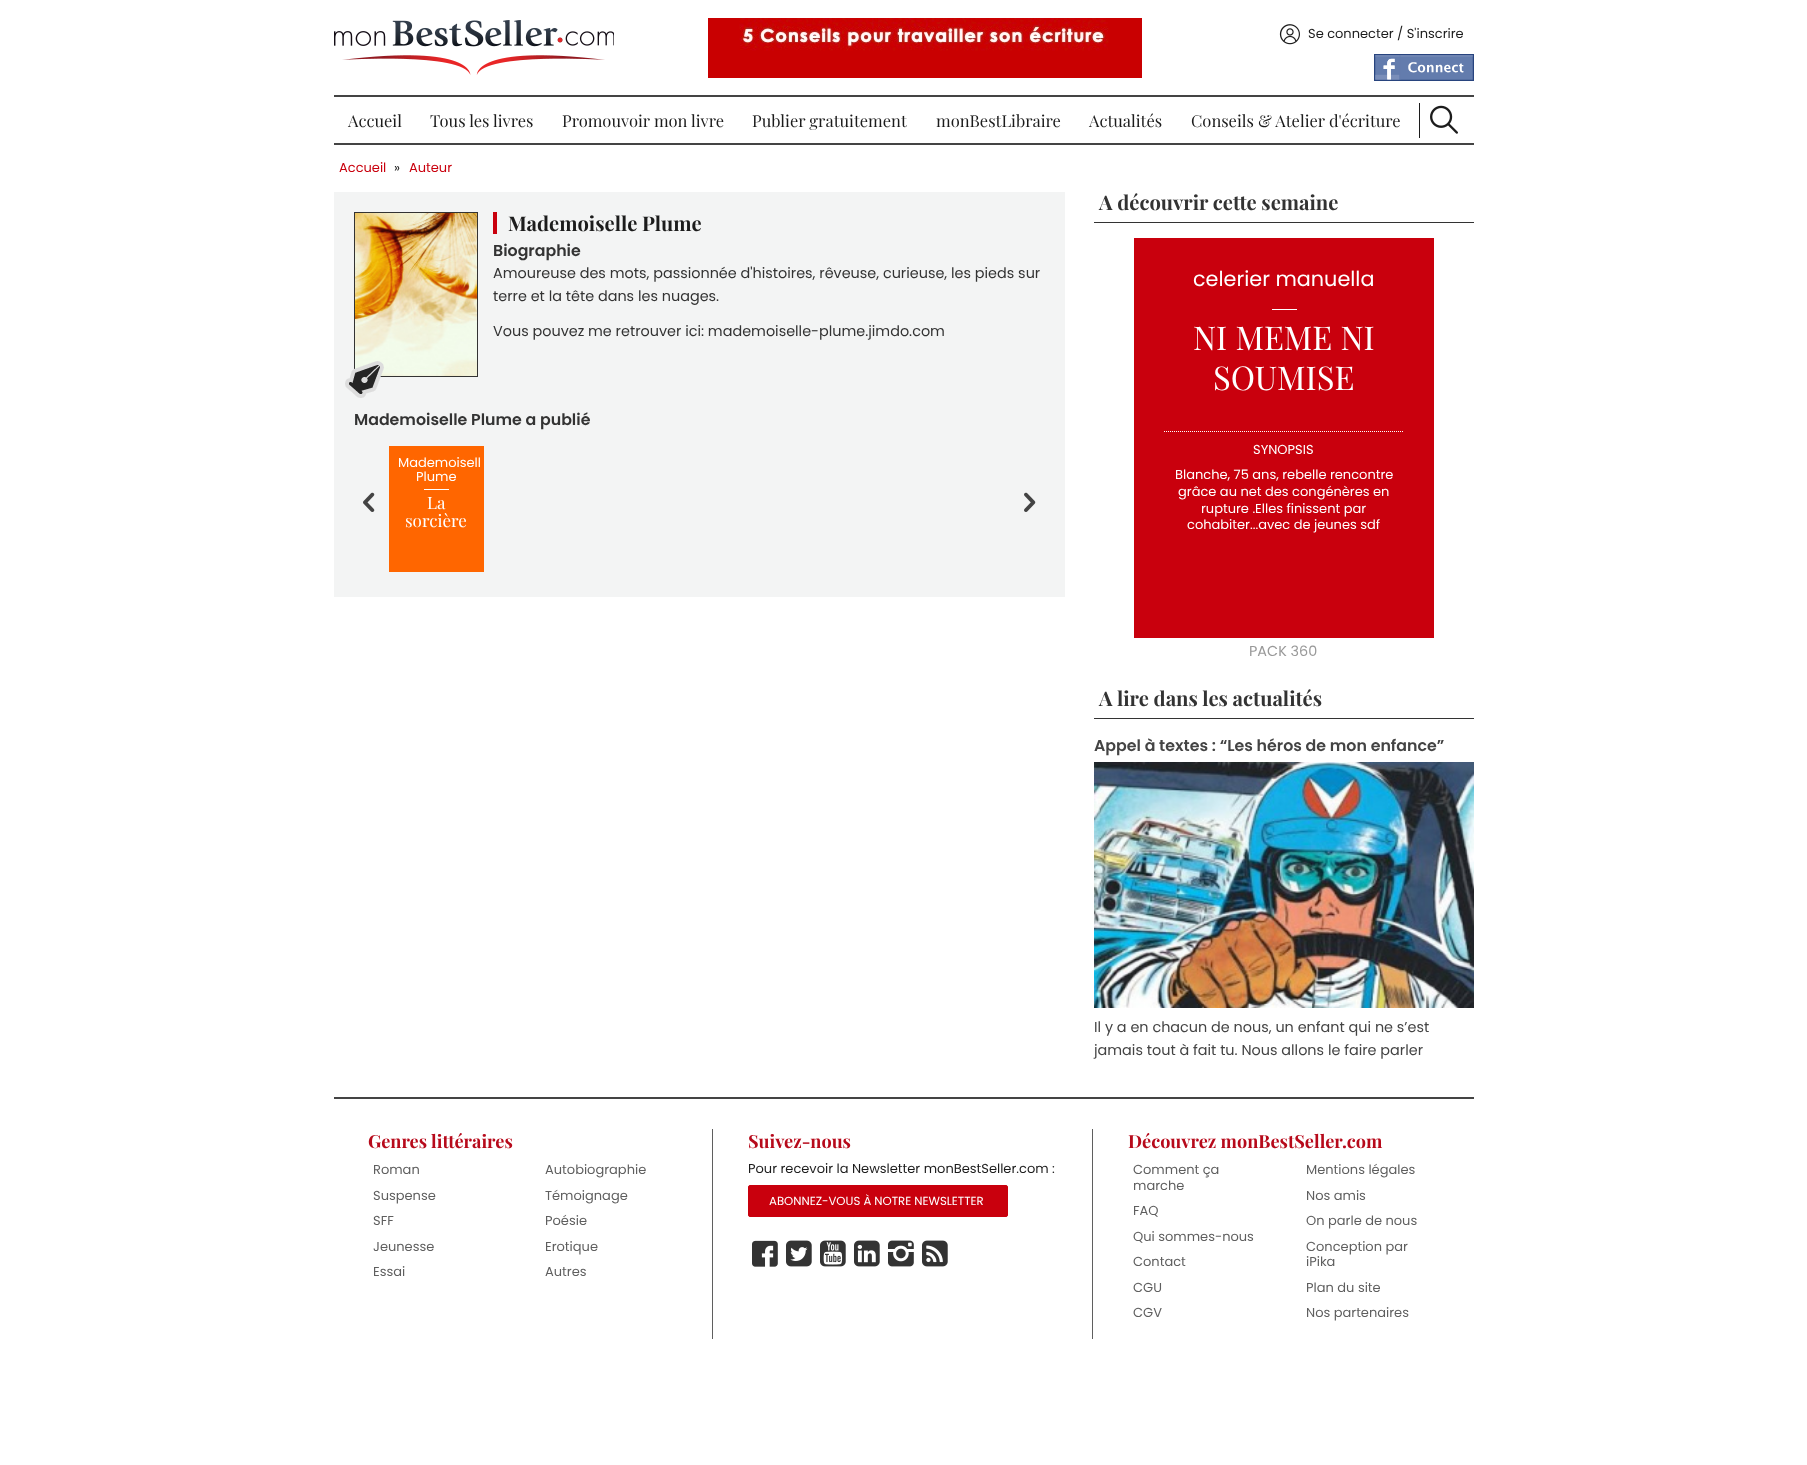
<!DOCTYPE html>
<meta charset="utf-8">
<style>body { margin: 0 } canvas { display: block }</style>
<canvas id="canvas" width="1807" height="1465"></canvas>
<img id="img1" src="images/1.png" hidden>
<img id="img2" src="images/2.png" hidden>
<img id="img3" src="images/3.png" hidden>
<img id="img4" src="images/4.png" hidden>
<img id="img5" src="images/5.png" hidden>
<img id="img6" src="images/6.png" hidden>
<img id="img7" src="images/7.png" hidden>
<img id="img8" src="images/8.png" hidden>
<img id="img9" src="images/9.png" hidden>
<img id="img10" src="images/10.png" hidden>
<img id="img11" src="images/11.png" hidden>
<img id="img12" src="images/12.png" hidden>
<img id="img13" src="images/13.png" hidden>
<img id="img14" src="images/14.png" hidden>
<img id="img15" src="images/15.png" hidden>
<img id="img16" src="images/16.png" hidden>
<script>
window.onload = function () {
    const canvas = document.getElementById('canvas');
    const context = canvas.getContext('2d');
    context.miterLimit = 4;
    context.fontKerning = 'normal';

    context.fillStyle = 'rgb(255, 255, 255)';
    context.fillRect(0, 0, 1807, 1465);
    context.drawImage(document.getElementById('img1'), 334, 20, 280, 55);
    context.drawImage(document.getElementById('img2'), 708, 18, 434, 60);
    context.drawImage(document.getElementById('img3'), 1279, 24, 21, 21);
    context.drawImage(document.getElementById('img4'), 1374, 54, 100, 27);
    context.fillStyle = 'rgb(68, 68, 68)';
    context.fillRect(334, 95, 1140, 2);
    context.fillRect(334, 143, 1140, 2);
    context.fillStyle = 'rgb(28, 28, 28)';
    context.fillRect(1419, 103, 1, 35);
    context.drawImage(document.getElementById('img5'), 1430, 105, 28, 29);
    context.fillStyle = 'rgb(243, 244, 244)';
    context.fillRect(334, 192, 731, 405);
    context.strokeStyle = 'rgb(51, 51, 51)';
    context.strokeRect(354.5, 212.5, 123, 164);
    context.drawImage(document.getElementById('img6'), 355, 213, 122, 163);
    context.drawImage(document.getElementById('img7'), 345, 361, 39, 37);
    context.fillStyle = 'rgb(201, 0, 13)';
    context.fillRect(493, 212, 4, 22);
    context.drawImage(document.getElementById('img8'), 363, 492, 12, 20);
    context.fillStyle = 'rgb(255, 102, 0)';
    context.fillRect(389, 446, 95, 126);
    context.fillStyle = 'rgb(255, 255, 255)';
    context.fillRect(424, 489, 25, 1);
    context.drawImage(document.getElementById('img9'), 1024, 492, 12, 20);
    context.fillStyle = 'rgb(51, 51, 51)';
    context.fillRect(1094, 222, 380, 1);
    context.fillStyle = 'rgb(201, 0, 13)';
    context.fillRect(1134, 238, 300, 400);
    context.fillStyle = 'rgb(255, 255, 255)';
    context.fillRect(1272, 309, 25, 1);
    context.beginPath();
    context.moveTo(1164, 431.5);
    context.lineTo(1404, 431.5);
    context.strokeStyle = 'rgb(255, 255, 255)';
    context.setLineDash([1, 1]);
    context.stroke();
    context.fillStyle = 'rgb(51, 51, 51)';
    context.fillRect(1094, 718, 380, 1);
    context.drawImage(document.getElementById('img10'), 1094, 762, 380, 246);
    context.fillStyle = 'rgb(68, 68, 68)';
    context.fillRect(334, 1097, 1140, 2);
    context.fillStyle = 'rgb(95, 95, 95)';
    context.fillRect(712, 1129, 1, 210);
    context.fillRect(1092, 1129, 1, 210);
    context.fillStyle = 'rgb(201, 0, 13)';
    context.beginPath();
    context.roundRect(748.5, 1185.5, 259, 31, 1.5);
    context.fill();
    context.strokeStyle = 'rgb(201, 0, 13)';
    context.setLineDash([]);
    context.stroke();
    context.drawImage(document.getElementById('img11'), 752, 1240, 26, 27);
    context.drawImage(document.getElementById('img12'), 786, 1240, 26, 27);
    context.drawImage(document.getElementById('img13'), 820, 1240, 26, 27);
    context.drawImage(document.getElementById('img14'), 854, 1240, 26, 27);
    context.drawImage(document.getElementById('img15'), 888, 1240, 26, 27);
    context.drawImage(document.getElementById('img16'), 922, 1240, 26, 27);
    context.font = '13px Poppins';
    context.fillStyle = 'rgb(28, 28, 28)';
    context.fillText('Se connecter / S\'inscrire', 1308, 38);
    context.font = '16.5px Playfair Display';
    context.fillText('Accueil', 348, 127);
    context.fillText('Tous les livres', 430, 127);
    context.fillText('Promouvoir mon livre', 562, 127);
    context.fillText('Publier gratuitement', 752, 127);
    context.fillText('monBestLibraire', 936, 127);
    context.fillText('Actualités', 1089, 127);
    context.fillText('Conseils & Atelier d\'écriture', 1191, 127);
    context.font = '13px Poppins';
    context.fillStyle = 'rgb(201, 0, 13)';
    context.fillText('Accueil', 339, 172);
    context.fillStyle = 'rgb(28, 28, 28)';
    context.fillText('»', 394, 172);
    context.fillStyle = 'rgb(201, 0, 13)';
    context.fillText('Auteur', 409, 172);
    context.font = 'bold 20.2px Playfair Display';
    context.fillStyle = 'rgb(28, 28, 28)';
    context.fillText('Mademoiselle Plume', 508, 231);
    context.font = '600 15.8px Poppins';
    context.fillStyle = 'rgb(51, 51, 51)';
    context.fillText('Biographie', 493, 256);
    context.font = '14.4px Poppins';
    context.fillText('Amoureuse des mots, passionnée d\'histoires, rêveuse, curieuse, les pieds sur', 493, 278);
    context.fillText('terre et la tête dans les nuages.', 493, 301);
    context.fillText('Vous pouvez me retrouver ici: mademoiselle-plume.jimdo.com', 493, 336);
    context.font = '600 15.8px Poppins';
    context.fillText('Mademoiselle Plume a publié', 354, 425);
    context.font = '13px Poppins';
    context.fillStyle = 'rgb(255, 255, 255)';
    context.fillText('Mademoisell', 398, 467);
    context.fillText('Plume', 416, 481);
    context.font = '17px Playfair Display';
    context.fillText('La', 427, 509);
    context.fillText('sorcière', 405, 527);
    context.font = 'bold 20.2px Playfair Display';
    context.fillStyle = 'rgb(51, 51, 51)';
    context.fillText('A découvrir cette semaine', 1099, 210);
    context.font = '20.75px Poppins';
    context.fillStyle = 'rgb(255, 255, 255)';
    context.fillText('celerier manuella', 1193, 286);
    context.font = '32.75px Playfair Display';
    context.fillText('NI MEME NI', 1193, 350);
    context.fillText('SOUMISE', 1213, 390);
    context.font = '13px Poppins';
    context.fillText('SYNOPSIS', 1253, 454);
    context.fillText('Blanche, 75 ans, rebelle rencontre', 1175, 479);
    context.fillText('grâce au net des congénères en', 1178, 496);
    context.fillText('rupture .Elles finissent par', 1201, 513);
    context.fillText('cohabiter...avec de jeunes sdf', 1187, 529);
    context.font = '14.4px Poppins';
    context.fillStyle = 'rgb(153, 153, 153)';
    context.fillText('PACK 360', 1249, 656);
    context.font = 'bold 20.2px Playfair Display';
    context.fillStyle = 'rgb(51, 51, 51)';
    context.fillText('A lire dans les actualités', 1099, 706);
    context.font = '600 15.8px Poppins';
    context.fillStyle = 'rgb(68, 68, 68)';
    context.fillText('Appel à textes : “Les héros de mon enfance”', 1094, 751);
    context.font = '14.4px Poppins';
    context.fillText('Il y a en chacun de nous, un enfant qui ne s’est', 1094, 1032);
    context.fillText('jamais tout à fait tu. Nous allons le faire parler', 1094, 1055);
    context.font = 'bold 18.1px Playfair Display';
    context.fillStyle = 'rgb(183, 10, 27)';
    context.fillText('Genres littéraires', 368, 1148);
    context.font = '13px Poppins';
    context.fillStyle = 'rgb(95, 95, 95)';
    context.fillText('Roman', 373, 1174);
    context.fillText('Autobiographie', 545, 1174);
    context.fillText('Suspense', 373, 1200);
    context.fillText('Témoignage', 545, 1200);
    context.fillText('SFF', 373, 1225);
    context.fillText('Poésie', 545, 1225);
    context.fillText('Jeunesse', 373, 1251);
    context.fillText('Erotique', 545, 1251);
    context.fillText('Essai', 373, 1276);
    context.fillText('Autres', 545, 1276);
    context.font = 'bold 18.1px Playfair Display';
    context.fillStyle = 'rgb(183, 10, 27)';
    context.fillText('Suivez-nous', 748, 1148);
    context.font = '13px Poppins';
    context.fillStyle = 'rgb(28, 28, 28)';
    context.fillText('Pour recevoir la Newsletter monBestSeller.com :', 748, 1173);
    context.font = '11.7px Poppins';
    context.fillStyle = 'rgb(255, 255, 255)';
    context.fillText('ABONNEZ-VOUS À NOTRE NEWSLETTER', 769, 1205);
    context.font = 'bold 18.1px Playfair Display';
    context.fillStyle = 'rgb(183, 10, 27)';
    context.fillText('Découvrez monBestSeller.com', 1128, 1148);
    context.font = '13px Poppins';
    context.fillStyle = 'rgb(95, 95, 95)';
    context.fillText('Comment ça', 1133, 1174);
    context.fillText('marche', 1133, 1190);
    context.fillText('Mentions légales', 1306, 1174);
    context.fillText('Nos amis', 1306, 1200);
    context.fillText('FAQ', 1133, 1215);
    context.fillText('On parle de nous', 1306, 1225);
    context.fillText('Qui sommes-nous', 1133, 1241);
    context.fillText('Contact', 1133, 1266);
    context.fillText('Conception par', 1306, 1251);
    context.fillText('iPika', 1306, 1266);
    context.fillText('CGU', 1133, 1292);
    context.fillText('Plan du site', 1306, 1292);
    context.fillText('CGV', 1133, 1317);
    context.fillText('Nos partenaires', 1306, 1317);
};
</script>
